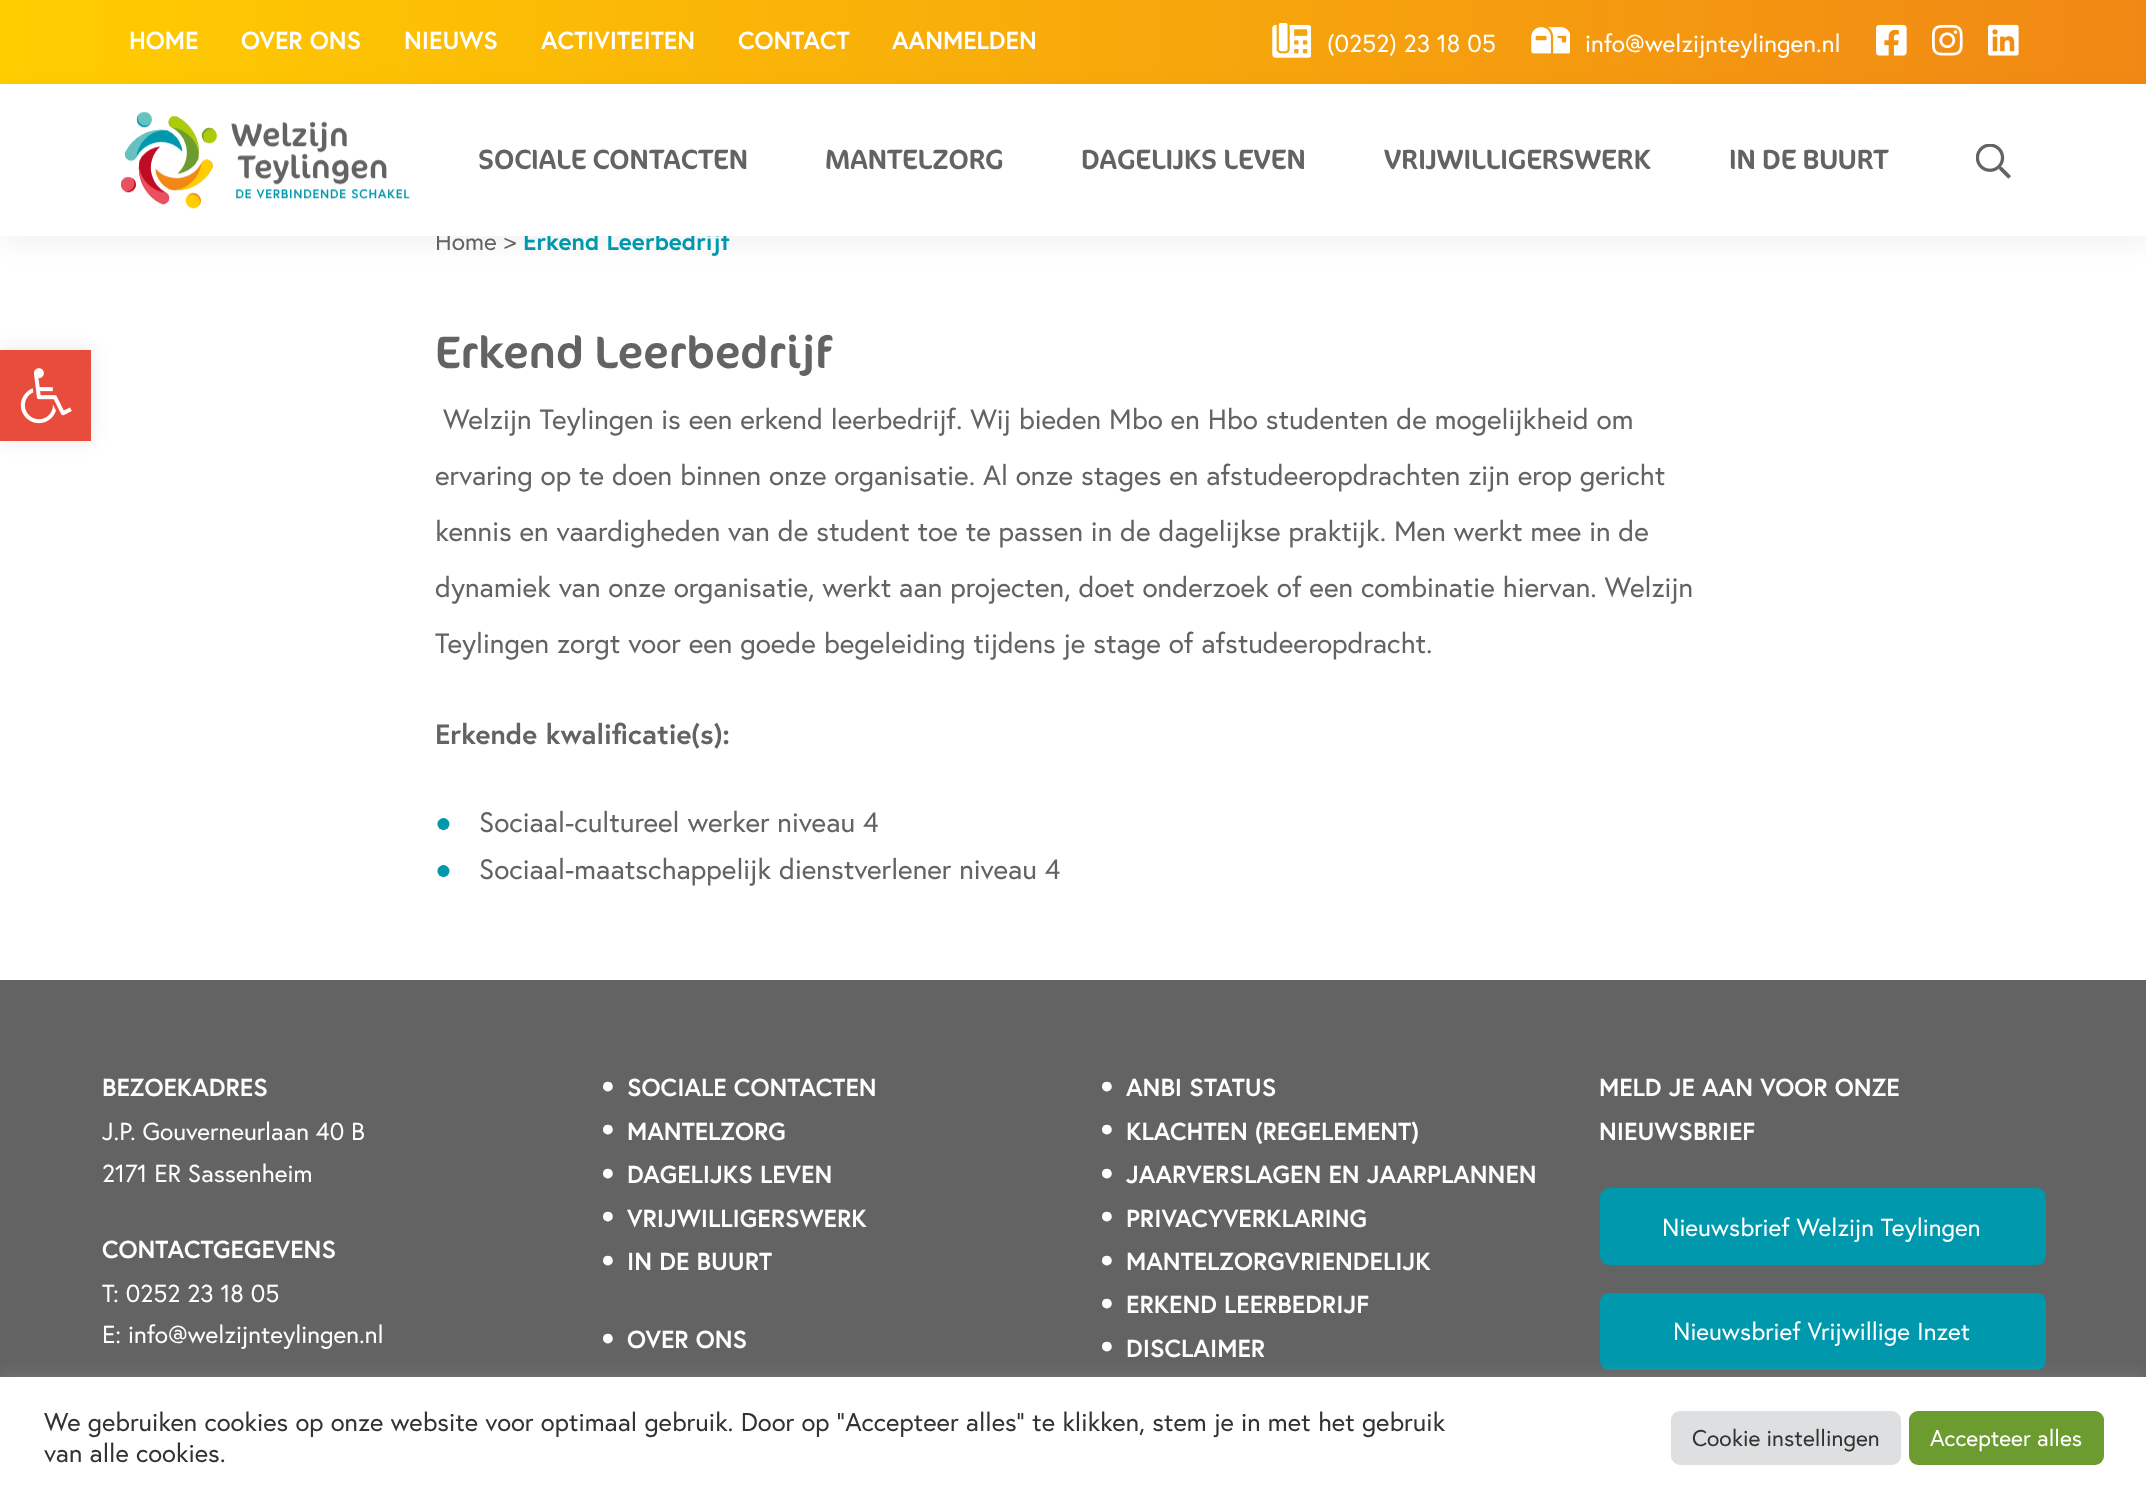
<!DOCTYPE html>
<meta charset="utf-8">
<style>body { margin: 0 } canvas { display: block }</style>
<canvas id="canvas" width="2146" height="1497"></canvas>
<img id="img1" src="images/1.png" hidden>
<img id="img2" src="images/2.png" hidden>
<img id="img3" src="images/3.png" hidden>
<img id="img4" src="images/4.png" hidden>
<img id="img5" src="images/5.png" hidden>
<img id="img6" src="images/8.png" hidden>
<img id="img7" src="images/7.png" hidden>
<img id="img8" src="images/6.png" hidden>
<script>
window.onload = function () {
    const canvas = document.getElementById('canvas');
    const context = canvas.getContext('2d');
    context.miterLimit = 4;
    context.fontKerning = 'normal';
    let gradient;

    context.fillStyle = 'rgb(255, 255, 255)';
    context.fillRect(0, 0, 2146, 1497);
    gradient = context.createLinearGradient(0, 42, 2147, 42);
    gradient.addColorStop(0, 'rgb(255, 205, 0)');
    gradient.addColorStop(1, 'rgb(241, 136, 21)');
    context.fillStyle = gradient;
    context.fillRect(0, 0, 2146, 84);
    context.fillStyle = 'rgba(0, 0, 0, 0.05)';
    context.filter = 'blur(13px)';
    context.beginPath();
    context.rect(0, 93, 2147, 152);
    context.fill();
    context.filter = 'none';
    context.drawImage(document.getElementById('img1'), 1272, 23, 39, 35);
    context.drawImage(document.getElementById('img2'), 1531, 27, 39, 27);
    context.drawImage(document.getElementById('img3'), 1876, 24, 31, 32);
    context.drawImage(document.getElementById('img4'), 1932, 24, 31, 32);
    context.drawImage(document.getElementById('img5'), 1988, 24, 31, 32);
    context.fillStyle = 'rgba(0, 0, 0, 0.1)';
    context.filter = 'blur(9px)';
    context.beginPath();
    context.rect(0, 350, 91, 91);
    context.fill();
    context.filter = 'none';
    context.fillStyle = 'rgb(231, 76, 60)';
    context.fillRect(0, 350, 91, 91);
    context.drawImage(document.getElementById('img6'), 20, 368, 52, 56);
    context.fillStyle = 'rgb(100, 99, 99)';
    context.fillRect(0, 980, 2146, 397);
    context.fillStyle = 'rgb(0, 152, 173)';
    context.beginPath();
    context.roundRect(1600, 1188, 446, 77, 9);
    context.fill();
    context.beginPath();
    context.roundRect(1600, 1293, 446, 77, 9);
    context.fill();
    context.fillStyle = 'rgba(172, 171, 171, 0.3)';
    context.filter = 'blur(9px)';
    context.beginPath();
    context.rect(0, 1376, 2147, 120);
    context.fill();
    context.filter = 'none';
    context.fillStyle = 'rgb(255, 255, 255)';
    context.fillRect(0, 1377, 2146, 120);
    context.fillStyle = 'rgb(222, 223, 224)';
    context.beginPath();
    context.roundRect(1671, 1411, 230, 54, 9);
    context.fill();
    context.fillStyle = 'rgb(108, 156, 48)';
    context.beginPath();
    context.roundRect(1909, 1411, 195, 54, 9);
    context.fill();
    context.font = 'bold 24.5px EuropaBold';
    context.fillStyle = 'rgb(255, 255, 255)';
    context.fillText('HOME', 129, 49);
    context.fillText('OVER ONS', 241, 49);
    context.fillText('NIEUWS', 404, 49);
    context.fillText('ACTIVITEITEN', 541, 49);
    context.fillText('CONTACT', 738, 49);
    context.fillText('AANMELDEN', 892, 49);
    context.font = '24.5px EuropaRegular';
    context.fillText('(0252) 23 18 05', 1327, 52);
    context.fillText('info@welzijnteylingen.nl', 1585, 52);
    context.fillStyle = 'rgb(100, 99, 99)';
    context.fillText('Home >', 435, 250);
    context.font = 'bold 24.5px EuropaBold';
    context.fillStyle = 'rgb(0, 152, 173)';
    context.fillText('Erkend Leerbedrijf', 523, 250);
    context.fillStyle = 'rgb(255, 255, 255)';
    context.fillRect(0, 84, 2146, 152);
    context.font = '28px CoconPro';
    context.fillStyle = 'rgb(100, 99, 99)';
    context.fillText('IN DE BUURT', 1729, 169);
    context.fillText('VRIJWILLIGERSWERK', 1384, 169);
    context.fillText('DAGELIJKS LEVEN', 1081, 169);
    context.fillText('MANTELZORG', 825, 169);
    context.fillText('SOCIALE CONTACTEN', 478, 169);
    context.drawImage(document.getElementById('img7'), 1976, 144, 35, 35);
    context.drawImage(document.getElementById('img8'), 121, 112, 289, 97);
    context.font = '45.5px CoconPro';
    context.fillText('Erkend Leerbedrijf', 435, 368);
    context.font = '28px EuropaRegular';
    context.fillText('Welzijn Teylingen is een erkend leerbedrijf. Wij bieden Mbo en Hbo studenten de mogelijkheid om', 443, 429);
    context.fillText('ervaring op te doen binnen onze organisatie. Al onze stages en afstudeeropdrachten zijn erop gericht', 435, 485);
    context.fillText('kennis en vaardigheden van de student toe te passen in de dagelijkse praktijk. Men werkt mee in de', 435, 541);
    context.fillText('dynamiek van onze organisatie, werkt aan projecten, doet onderzoek of een combinatie hiervan. Welzijn', 435, 597);
    context.fillText('Teylingen zorgt voor een goede begeleiding tijdens je stage of afstudeeropdracht.', 435, 653);
    context.font = 'bold 28px EuropaBold';
    context.fillText('Erkende kwalificatie(s):', 435, 744);
    context.font = '28px Liberation Sans';
    context.fillStyle = 'rgb(0, 152, 173)';
    context.fillText('●', 435, 832);
    context.font = '28px EuropaRegular';
    context.fillStyle = 'rgb(100, 99, 99)';
    context.fillText('Sociaal-cultureel werker niveau 4', 479, 832);
    context.font = '28px Liberation Sans';
    context.fillStyle = 'rgb(0, 152, 173)';
    context.fillText('●', 435, 879);
    context.font = '28px EuropaRegular';
    context.fillStyle = 'rgb(100, 99, 99)';
    context.fillText('Sociaal-maatschappelijk dienstverlener niveau 4', 479, 879);
    context.font = 'bold 24.5px EuropaBold';
    context.fillStyle = 'rgb(255, 255, 255)';
    context.fillText('BEZOEKADRES', 102, 1096);
    context.font = '24.5px EuropaRegular';
    context.fillText('J.P. Gouverneurlaan 40 B', 102, 1140);
    context.fillText('2171 ER Sassenheim', 102, 1182);
    context.font = 'bold 24.5px EuropaBold';
    context.fillText('CONTACTGEGEVENS', 102, 1258);
    context.font = '24.5px EuropaRegular';
    context.fillText('T: 0252 23 18 05', 102, 1302);
    context.fillText('E: info@welzijnteylingen.nl', 102, 1343);
    context.font = '22.75px Liberation Sans';
    context.fillText('●', 601, 1093);
    context.font = 'bold 24.5px EuropaBold';
    context.fillText('SOCIALE CONTACTEN', 627, 1096);
    context.font = '22.75px Liberation Sans';
    context.fillText('●', 601, 1136);
    context.font = 'bold 24.5px EuropaBold';
    context.fillText('MANTELZORG', 627, 1140);
    context.font = '22.75px Liberation Sans';
    context.fillText('●', 601, 1180);
    context.font = 'bold 24.5px EuropaBold';
    context.fillText('DAGELIJKS LEVEN', 627, 1183);
    context.font = '22.75px Liberation Sans';
    context.fillText('●', 601, 1223);
    context.font = 'bold 24.5px EuropaBold';
    context.fillText('VRIJWILLIGERSWERK', 627, 1227);
    context.font = '22.75px Liberation Sans';
    context.fillText('●', 601, 1267);
    context.font = 'bold 24.5px EuropaBold';
    context.fillText('IN DE BUURT', 627, 1270);
    context.font = '22.75px Liberation Sans';
    context.fillText('●', 601, 1345);
    context.font = 'bold 24.5px EuropaBold';
    context.fillText('OVER ONS', 627, 1348);
    context.font = '22.75px Liberation Sans';
    context.fillText('●', 1100, 1093);
    context.font = 'bold 24.5px EuropaBold';
    context.fillText('ANBI STATUS', 1126, 1096);
    context.font = '22.75px Liberation Sans';
    context.fillText('●', 1100, 1136);
    context.font = 'bold 24.5px EuropaBold';
    context.fillText('KLACHTEN (REGELEMENT)', 1126, 1140);
    context.font = '22.75px Liberation Sans';
    context.fillText('●', 1100, 1180);
    context.font = 'bold 24.5px EuropaBold';
    context.fillText('JAARVERSLAGEN EN JAARPLANNEN', 1126, 1183);
    context.font = '22.75px Liberation Sans';
    context.fillText('●', 1100, 1223);
    context.font = 'bold 24.5px EuropaBold';
    context.fillText('PRIVACYVERKLARING', 1126, 1227);
    context.font = '22.75px Liberation Sans';
    context.fillText('●', 1100, 1267);
    context.font = 'bold 24.5px EuropaBold';
    context.fillText('MANTELZORGVRIENDELIJK', 1126, 1270);
    context.font = '22.75px Liberation Sans';
    context.fillText('●', 1100, 1310);
    context.font = 'bold 24.5px EuropaBold';
    context.fillText('ERKEND LEERBEDRIJF', 1126, 1313);
    context.font = '22.75px Liberation Sans';
    context.fillText('●', 1100, 1353);
    context.font = 'bold 24.5px EuropaBold';
    context.fillText('DISCLAIMER', 1126, 1357);
    context.fillText('MELD JE AAN VOOR ONZE', 1599, 1096);
    context.fillText('NIEUWSBRIEF', 1599, 1140);
    context.font = '24.5px EuropaRegular';
    context.fillText('Nieuwsbrief Welzijn Teylingen', 1662, 1236);
    context.fillText('Nieuwsbrief Vrijwillige Inzet', 1673, 1340);
    context.font = '25.67px EuropaRegular';
    context.fillStyle = 'rgb(51, 51, 51)';
    context.fillText('We gebruiken cookies op onze website voor optimaal gebruik. Door op "Accepteer alles" te klikken, stem je in met het gebruik', 44, 1431);
    context.fillText('van alle cookies.', 44, 1462);
    context.font = '22.75px EuropaRegular';
    context.fillText('Cookie instellingen', 1692, 1446);
    context.fillStyle = 'rgb(255, 255, 255)';
    context.fillText('Accepteer alles', 1930, 1446);
};
</script>
